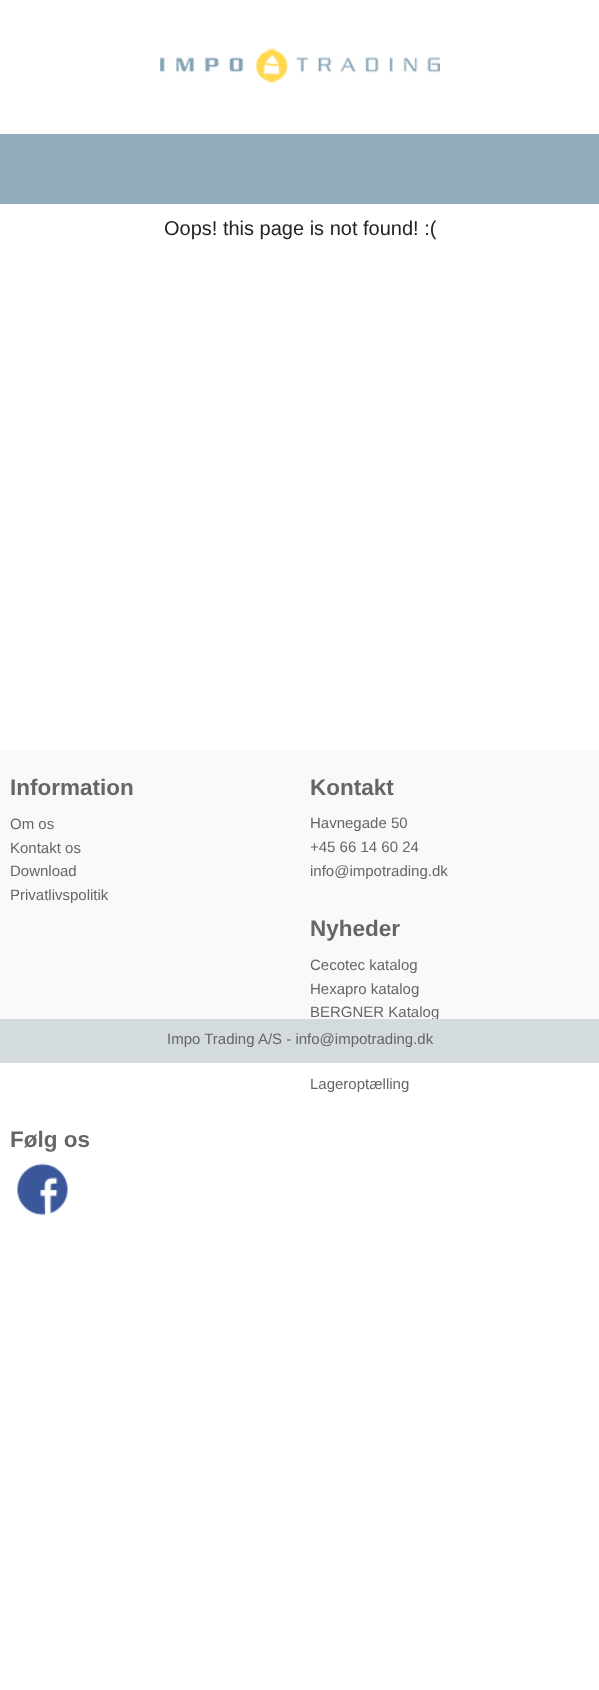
<!DOCTYPE html>
<meta charset="utf-8">
<style>body { margin: 0 } canvas { display: block }</style>
<canvas id="canvas" width="599" height="1690"></canvas>
<img id="img1" src="images/1.png" hidden>
<img id="img2" src="images/2.png" hidden>
<script>
window.onload = function () {
    const canvas = document.getElementById('canvas');
    const context = canvas.getContext('2d');
    context.miterLimit = 4;
    context.fontKerning = 'normal';

    context.fillStyle = 'rgb(255, 255, 255)';
    context.fillRect(0, 0, 599, 1690);
    context.drawImage(document.getElementById('img1'), 160, 48, 280, 35);
    context.fillStyle = 'rgb(146, 172, 190)';
    context.fillRect(0, 134, 599, 70);
    context.fillStyle = 'rgb(247, 249, 250)';
    context.fillRect(0, 750, 599, 269);
    context.drawImage(document.getElementById('img2'), 17, 1163, 51, 53);
    context.font = '20px Liberation Sans';
    context.fillStyle = 'rgb(34, 34, 34)';
    context.fillText('Oops! this page is not found! :(', 164, 235);
    context.font = 'bold 22.5px Liberation Sans';
    context.fillStyle = 'rgb(102, 102, 102)';
    context.fillText('Information', 10, 795);
    context.font = '15px Liberation Sans';
    context.fillText('Om os', 10, 829);
    context.fillText('Kontakt os', 10, 853);
    context.fillText('Download', 10, 876);
    context.fillText('Privatlivspolitik', 10, 900);
    context.font = 'bold 22.5px Liberation Sans';
    context.fillText('Kontakt', 310, 795);
    context.font = '15px Liberation Sans';
    context.fillText('Havnegade 50', 310, 828);
    context.fillText('+45 66 14 60 24', 310, 852);
    context.fillText('info@impotrading.dk', 310, 876);
    context.font = 'bold 22.5px Liberation Sans';
    context.fillText('Nyheder', 310, 936);
    context.font = '15px Liberation Sans';
    context.fillText('Cecotec katalog', 310, 970);
    context.fillText('Hexapro katalog', 310, 994);
    context.fillText('BERGNER Katalog', 310, 1017);
    context.fillText('Lageroptælling', 310, 1089);
    context.font = 'bold 22.5px Liberation Sans';
    context.fillText('Følg os', 10, 1147);
    context.fillStyle = 'rgb(212, 219, 223)';
    context.fillRect(0, 1019, 599, 44);
    context.font = '15px Liberation Sans';
    context.fillStyle = 'rgb(102, 102, 102)';
    context.fillText('Impo Trading A/S - info@impotrading.dk', 167, 1044);
};
</script>
